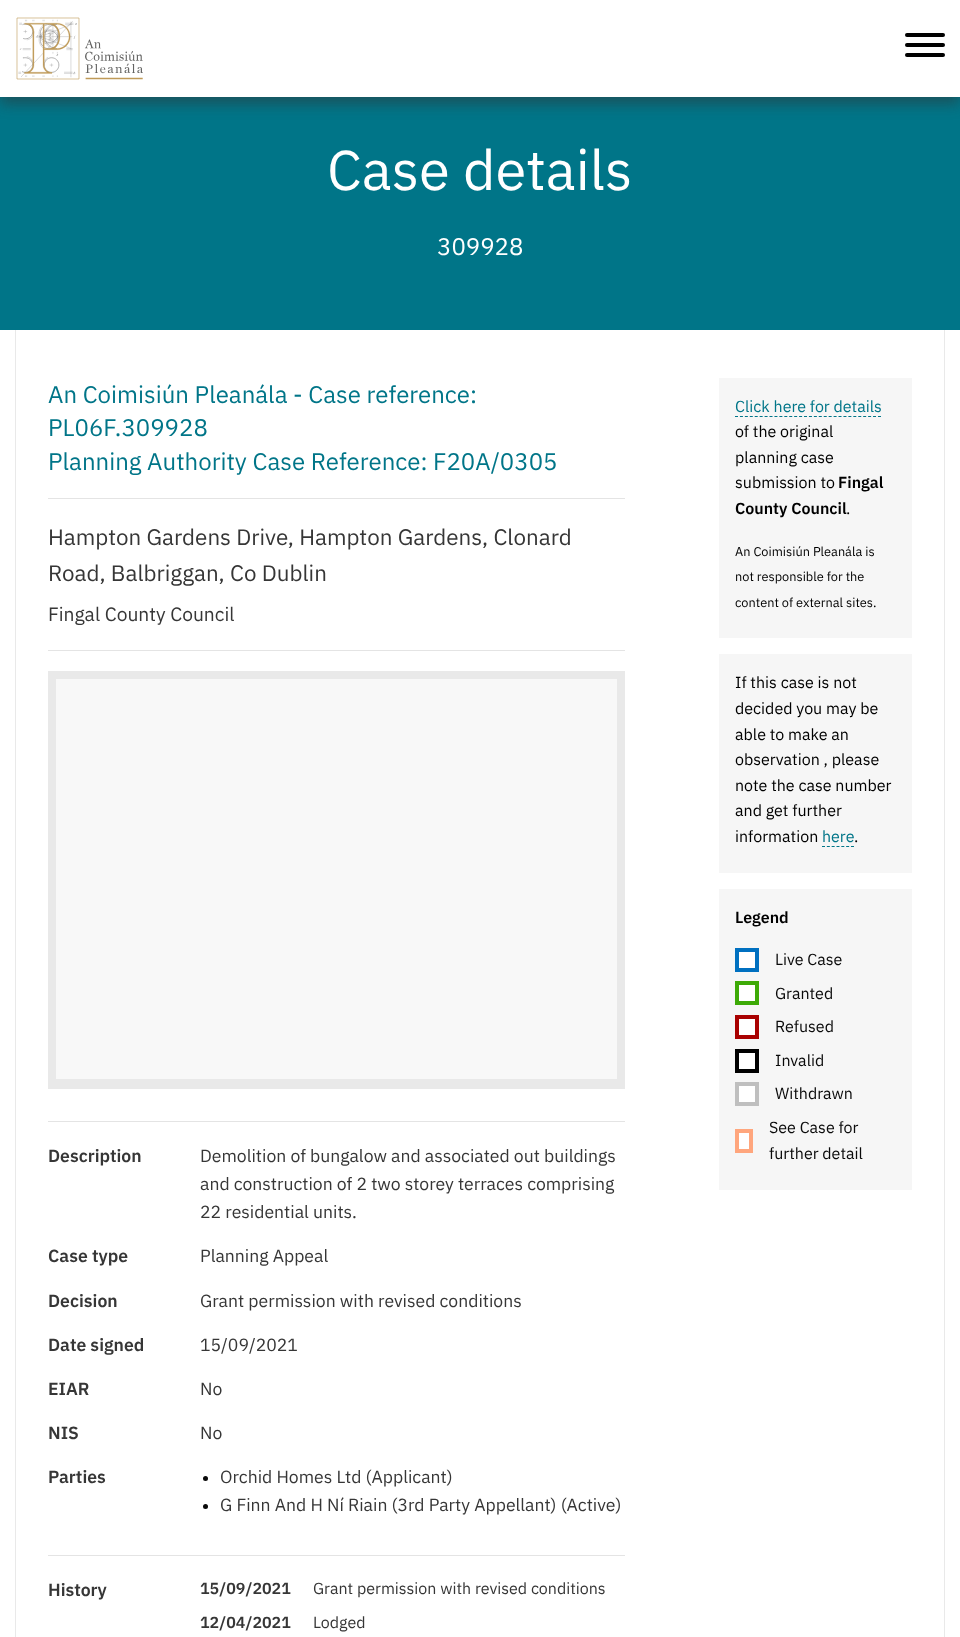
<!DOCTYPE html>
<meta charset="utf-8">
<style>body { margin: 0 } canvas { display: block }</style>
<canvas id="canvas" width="960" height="1637"></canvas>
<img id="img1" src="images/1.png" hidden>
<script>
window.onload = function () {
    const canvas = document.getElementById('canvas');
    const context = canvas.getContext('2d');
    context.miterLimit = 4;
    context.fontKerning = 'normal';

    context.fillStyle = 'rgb(255, 255, 255)';
    context.fillRect(0, 0, 960, 1637);
    context.fillStyle = 'rgb(0, 117, 136)';
    context.fillRect(0, 97, 960, 233);
    context.fillStyle = 'rgba(50, 50, 50, 0.5)';
    context.filter = 'blur(7px)';
    context.beginPath();
    context.rect(0, 7, 960, 97);
    context.fill();
    context.filter = 'none';
    context.fillStyle = 'rgb(255, 255, 255)';
    context.fillRect(0, 0, 960, 97);
    context.drawImage(document.getElementById('img1'), 16, 17, 127, 63);
    context.fillStyle = 'rgb(0, 0, 0)';
    context.beginPath();
    context.roundRect(905, 33, 40, 4, 2);
    context.fill();
    context.beginPath();
    context.roundRect(905, 43, 40, 4, 2);
    context.fill();
    context.beginPath();
    context.roundRect(905, 53, 40, 4, 2);
    context.fill();
    context.fillStyle = 'rgb(233, 233, 233)';
    context.fillRect(944, 330, 1, 1307);
    context.fillRect(15, 330, 1, 1307);
    context.fillStyle = 'rgb(228, 228, 228)';
    context.fillRect(48, 498, 577, 1);
    context.fillRect(48, 650, 577, 1);
    context.fillStyle = 'rgb(233, 233, 233)';
    context.fillRect(48, 671, 577, 418);
    context.fillStyle = 'rgb(248, 248, 248)';
    context.fillRect(56, 679, 561, 400);
    context.fillStyle = 'rgb(228, 228, 228)';
    context.fillRect(48, 1121, 577, 1);
    context.fillStyle = 'rgb(10, 10, 10)';
    context.beginPath();
    context.arc(205.5, 1478.5, 2.5, 0, 2 * Math.PI);
    context.fill();
    context.beginPath();
    context.arc(205.5, 1506.5, 2.5, 0, 2 * Math.PI);
    context.fill();
    context.fillStyle = 'rgb(228, 228, 228)';
    context.fillRect(48, 1555, 577, 1);
    context.fillStyle = 'rgb(246, 246, 246)';
    context.fillRect(719, 378, 193, 260);
    context.beginPath();
    context.moveTo(735, 416.5);
    context.lineTo(881, 416.5);
    context.strokeStyle = 'rgb(0, 117, 136)';
    context.setLineDash([3, 1.93]);
    context.stroke();
    context.fillRect(719, 654, 193, 219);
    context.beginPath();
    context.moveTo(822, 846.5);
    context.lineTo(854, 846.5);
    context.setLineDash([3, 1.83]);
    context.stroke();
    context.fillRect(719, 889, 193, 301);
    context.fillStyle = 'rgb(255, 255, 255)';
    context.beginPath();
    context.rect(737, 950, 20, 20);
    context.fill();
    context.strokeStyle = 'rgb(0, 112, 192)';
    context.lineWidth = 4;
    context.setLineDash([]);
    context.stroke();
    context.beginPath();
    context.rect(737, 983, 20, 20);
    context.fill();
    context.strokeStyle = 'rgb(61, 170, 7)';
    context.stroke();
    context.beginPath();
    context.rect(737, 1017, 20, 20);
    context.fill();
    context.strokeStyle = 'rgb(169, 1, 1)';
    context.stroke();
    context.beginPath();
    context.rect(737, 1051, 20, 20);
    context.fill();
    context.strokeStyle = 'rgb(0, 0, 0)';
    context.stroke();
    context.beginPath();
    context.rect(737, 1084, 20, 20);
    context.fill();
    context.strokeStyle = 'rgb(191, 191, 191)';
    context.stroke();
    context.beginPath();
    context.rect(737, 1131, 14, 20);
    context.fill();
    context.strokeStyle = 'rgb(255, 166, 125)';
    context.stroke();
    context.font = '56px IBM Plex Sans';
    context.fillText('Case details', 327, 190);
    context.font = '24px IBM Plex Sans';
    context.fillText('309928', 437, 255);
    context.fillStyle = 'rgb(0, 117, 136)';
    context.fillText('An Coimisiún Pleanála - Case reference:', 48, 403);
    context.fillText('PL06F.309928', 48, 436);
    context.fillText('Planning Authority Case Reference: F20A/0305', 48, 470);
    context.font = '22.4px IBM Plex Sans';
    context.fillStyle = 'rgb(54, 54, 54)';
    context.fillText('Hampton Gardens Drive, Hampton Gardens, Clonard', 48, 545);
    context.fillText('Road, Balbriggan, Co Dublin', 48, 581);
    context.font = '19.25px IBM Plex Sans';
    context.fillText('Fingal County Council', 48, 621);
    context.font = '600 17.6px IBM Plex Sans';
    context.fillText('Description', 48, 1162);
    context.font = '17.6px IBM Plex Sans';
    context.fillText('Demolition of bungalow and associated out buildings', 200, 1162);
    context.fillText('and construction of 2 two storey terraces comprising', 200, 1190);
    context.fillText('22 residential units.', 200, 1218);
    context.font = '600 17.6px IBM Plex Sans';
    context.fillText('Case type', 48, 1262);
    context.font = '17.6px IBM Plex Sans';
    context.fillText('Planning Appeal', 200, 1262);
    context.font = '600 17.6px IBM Plex Sans';
    context.fillText('Decision', 48, 1307);
    context.font = '17.6px IBM Plex Sans';
    context.fillText('Grant permission with revised conditions', 200, 1307);
    context.font = '600 17.6px IBM Plex Sans';
    context.fillText('Date signed', 48, 1351);
    context.font = '17.6px IBM Plex Sans';
    context.fillText('15/09/2021', 200, 1351);
    context.font = '600 17.6px IBM Plex Sans';
    context.fillText('EIAR', 48, 1395);
    context.font = '17.6px IBM Plex Sans';
    context.fillText('No', 200, 1395);
    context.font = '600 17.6px IBM Plex Sans';
    context.fillText('NIS', 48, 1439);
    context.font = '17.6px IBM Plex Sans';
    context.fillText('No', 200, 1439);
    context.font = '600 17.6px IBM Plex Sans';
    context.fillText('Parties', 48, 1483);
    context.font = '17.6px IBM Plex Sans';
    context.fillText('Orchid Homes Ltd (Applicant)', 220, 1483);
    context.fillText('G Finn And H Ní Riain (3rd Party Appellant) (Active)', 220, 1511);
    context.font = '600 17.6px IBM Plex Sans';
    context.fillText('History', 48, 1596);
    context.font = '600 16px IBM Plex Sans';
    context.fillText('15/09/2021', 200, 1594);
    context.font = '16px IBM Plex Sans';
    context.fillText('Grant permission with revised conditions', 313, 1594);
    context.font = '600 16px IBM Plex Sans';
    context.fillText('12/04/2021', 200, 1628);
    context.font = '16px IBM Plex Sans';
    context.fillText('Lodged', 313, 1628);
    context.fillStyle = 'rgb(0, 117, 136)';
    context.fillText('Click here for details', 735, 412);
    context.fillStyle = 'rgb(0, 0, 0)';
    context.fillText('of the original', 735, 437);
    context.fillText('planning case', 735, 463);
    context.fillText('submission to', 735, 488);
    context.font = '600 16px IBM Plex Sans';
    context.fillText('Fingal', 838, 488);
    context.fillText('County Council', 735, 514);
    context.font = '16px IBM Plex Sans';
    context.fillText('.', 846, 514);
    context.font = '12.75px IBM Plex Sans';
    context.fillText('An Coimisiún Pleanála is', 735, 556);
    context.fillText('not responsible for the', 735, 581);
    context.fillText('content of external sites.', 735, 607);
    context.font = '16px IBM Plex Sans';
    context.fillText('If this case is not', 735, 688);
    context.fillText('decided you may be', 735, 714);
    context.fillText('able to make an', 735, 740);
    context.fillText('observation , please', 735, 765);
    context.fillText('note the case number', 735, 791);
    context.fillText('and get further', 735, 816);
    context.fillText('information', 735, 842);
    context.fillStyle = 'rgb(0, 117, 136)';
    context.fillText('here', 822, 842);
    context.fillStyle = 'rgb(0, 0, 0)';
    context.fillText('.', 854, 842);
    context.font = '600 16px IBM Plex Sans';
    context.fillText('Legend', 735, 923);
    context.font = '16px IBM Plex Sans';
    context.fillStyle = 'rgb(10, 10, 10)';
    context.fillText('Live Case', 775, 965);
    context.fillText('Granted', 775, 999);
    context.fillText('Refused', 775, 1032);
    context.fillText('Invalid', 775, 1066);
    context.fillText('Withdrawn', 775, 1099);
    context.fillText('See Case for', 769, 1133);
    context.fillText('further detail', 769, 1159);
};
</script>
